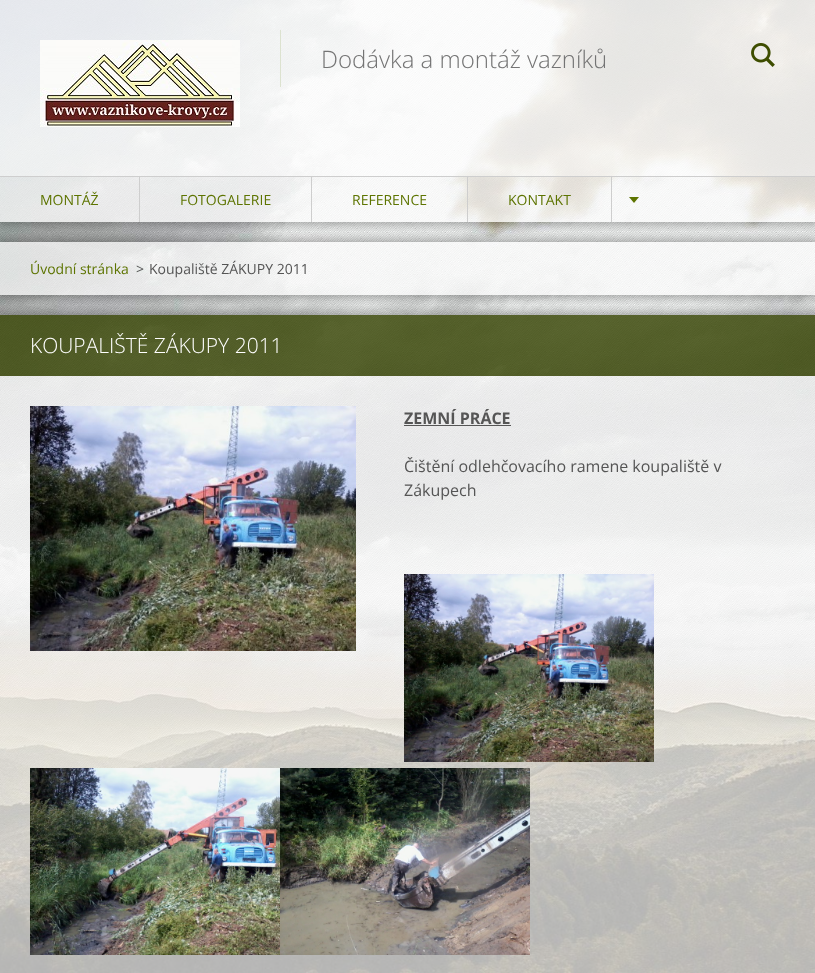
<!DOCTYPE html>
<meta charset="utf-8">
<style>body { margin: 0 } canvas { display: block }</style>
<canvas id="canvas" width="815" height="973"></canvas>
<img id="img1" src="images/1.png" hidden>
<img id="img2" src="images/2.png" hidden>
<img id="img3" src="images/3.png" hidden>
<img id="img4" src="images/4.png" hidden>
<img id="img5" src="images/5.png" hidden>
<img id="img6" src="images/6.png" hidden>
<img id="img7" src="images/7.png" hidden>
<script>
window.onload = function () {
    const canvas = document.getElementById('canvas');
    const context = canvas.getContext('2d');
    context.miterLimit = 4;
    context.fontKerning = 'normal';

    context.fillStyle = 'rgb(255, 255, 255)';
    context.fillRect(0, 0, 815, 973);
    context.drawImage(document.getElementById('img1'), 0, 0, 815, 973);
    context.save();
    context.beginPath();
    context.rect(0, 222, 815, 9);
    context.clip();
    context.fillStyle = 'rgba(0, 0, 0, 0.25)';
    context.filter = 'blur(4.5px)';
    context.beginPath();
    context.rect(-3, -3, 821, 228);
    context.fill();
    context.filter = 'none';
    context.restore();
    context.fillStyle = 'rgba(255, 255, 255, 0.85)';
    context.fillRect(0, 0, 815, 176);
    context.drawImage(document.getElementById('img2'), 40, 40, 200, 87);
    context.fillStyle = 'rgb(220, 226, 207)';
    context.fillRect(280, 30, 1, 57);
    context.drawImage(document.getElementById('img3'), 751, 43, 24, 24);
    context.fillStyle = 'rgb(206, 206, 206)';
    context.fillRect(0, 176, 815, 1);
    context.fillStyle = 'rgba(255, 255, 255, 0.75)';
    context.fillRect(0, 177, 815, 45);
    context.fillStyle = 'rgb(206, 206, 206)';
    context.fillRect(139, 177, 1, 45);
    context.fillRect(311, 177, 1, 45);
    context.fillRect(467, 177, 1, 45);
    context.fillRect(611, 177, 1, 45);
    context.fillStyle = 'rgb(93, 116, 0)';
    context.beginPath();
    context.moveTo(629, 197);
    context.lineTo(639, 197);
    context.lineTo(634, 203);
    context.closePath();
    context.fill();
    context.save();
    context.beginPath();
    context.moveTo(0, 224);
    context.lineTo(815, 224);
    context.lineTo(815, 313);
    context.lineTo(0, 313);
    context.closePath();
    context.moveTo(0, 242);
    context.lineTo(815, 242);
    context.lineTo(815, 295);
    context.lineTo(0, 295);
    context.closePath();
    context.clip('evenodd');
    context.fillStyle = 'rgba(0, 0, 0, 0.25)';
    context.filter = 'blur(4.5px)';
    context.beginPath();
    context.rect(-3, 239, 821, 59);
    context.fill();
    context.filter = 'none';
    context.restore();
    context.fillStyle = 'rgba(255, 255, 255, 0.7)';
    context.fillRect(0, 242, 815, 53);
    context.save();
    context.beginPath();
    context.rect(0, 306, 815, 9);
    context.clip();
    context.fillStyle = 'rgba(0, 0, 0, 0.25)';
    context.filter = 'blur(4.5px)';
    context.beginPath();
    context.rect(-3, 312, 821, 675);
    context.fill();
    context.filter = 'none';
    context.restore();
    context.fillStyle = 'rgba(53, 66, 0, 0.8)';
    context.fillRect(0, 315, 815, 61);
    context.fillStyle = 'rgba(255, 255, 255, 0.7)';
    context.fillRect(0, 376, 815, 597);
    context.drawImage(document.getElementById('img4'), 30, 406, 326, 245);
    context.fillStyle = 'rgb(85, 85, 85)';
    context.fillRect(404, 425, 107, 1);
    context.drawImage(document.getElementById('img5'), 404, 574, 250, 188);
    context.drawImage(document.getElementById('img6'), 30, 768, 250, 187);
    context.drawImage(document.getElementById('img7'), 280, 768, 250, 187);
    context.font = '300 24px Open Sans';
    context.fillStyle = 'rgb(116, 116, 116)';
    context.fillText('Dodávka a montáž vazníků', 321, 68);
    context.font = '14px Open Sans';
    context.fillStyle = 'rgb(93, 116, 0)';
    context.fillText('MONTÁŽ', 40, 205);
    context.fillText('FOTOGALERIE', 180, 205);
    context.fillText('REFERENCE', 352, 205);
    context.fillText('KONTAKT', 508, 205);
    context.fillText('Úvodní stránka', 30, 274);
    context.fillStyle = 'rgb(85, 85, 85)';
    context.fillText('>', 136, 274);
    context.fillText('Koupaliště ZÁKUPY 2011', 149, 274);
    context.font = '300 21px Open Sans';
    context.fillStyle = 'rgb(255, 255, 255)';
    context.fillText('KOUPALIŠTĚ ZÁKUPY 2011', 30, 353);
    context.font = 'bold 16px Open Sans';
    context.fillStyle = 'rgb(85, 85, 85)';
    context.fillText('ZEMNÍ PRÁCE', 404, 424);
    context.font = '16px Open Sans';
    context.fillText('Čištění odlehčovacího ramene koupaliště v', 404, 472);
    context.fillText('Zákupech', 404, 496);
};
</script>
